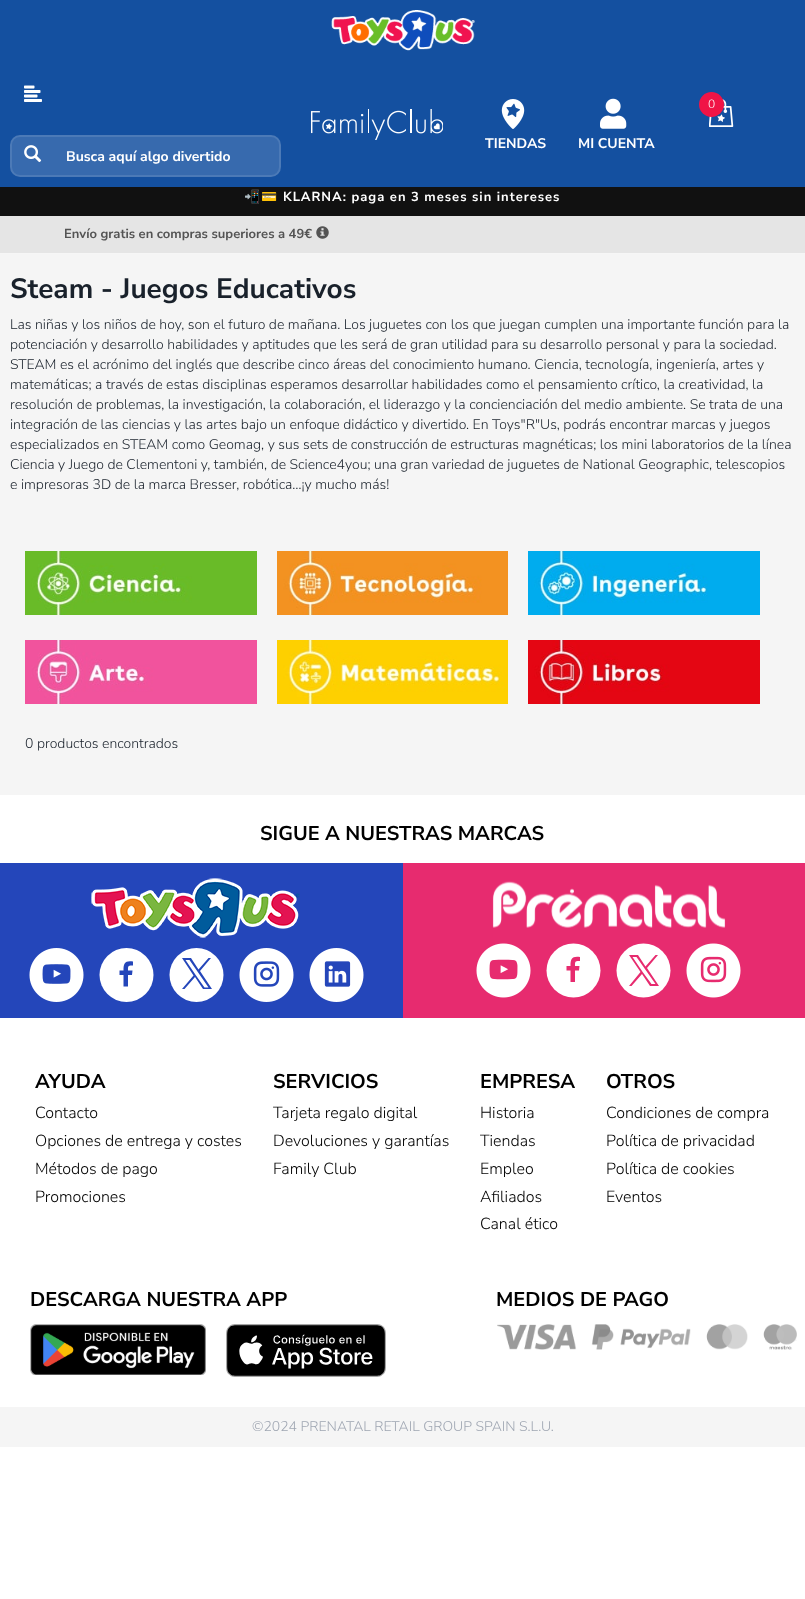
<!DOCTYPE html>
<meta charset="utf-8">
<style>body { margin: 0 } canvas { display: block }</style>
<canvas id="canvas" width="805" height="1599"></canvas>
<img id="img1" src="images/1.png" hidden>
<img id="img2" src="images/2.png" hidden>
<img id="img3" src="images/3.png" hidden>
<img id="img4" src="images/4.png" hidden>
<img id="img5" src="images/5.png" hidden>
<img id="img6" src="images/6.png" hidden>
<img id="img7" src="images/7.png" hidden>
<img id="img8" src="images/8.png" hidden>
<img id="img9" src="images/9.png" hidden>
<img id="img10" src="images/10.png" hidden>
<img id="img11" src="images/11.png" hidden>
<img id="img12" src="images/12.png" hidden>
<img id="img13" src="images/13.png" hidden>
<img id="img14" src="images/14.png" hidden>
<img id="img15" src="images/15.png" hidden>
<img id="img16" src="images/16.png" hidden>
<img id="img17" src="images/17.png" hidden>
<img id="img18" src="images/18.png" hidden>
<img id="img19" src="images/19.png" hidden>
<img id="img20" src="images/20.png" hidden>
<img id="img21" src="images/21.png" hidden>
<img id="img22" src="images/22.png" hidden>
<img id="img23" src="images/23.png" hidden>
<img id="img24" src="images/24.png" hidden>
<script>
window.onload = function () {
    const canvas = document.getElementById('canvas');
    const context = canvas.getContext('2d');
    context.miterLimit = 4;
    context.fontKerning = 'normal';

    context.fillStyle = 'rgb(255, 255, 255)';
    context.fillRect(0, 0, 805, 1599);
    context.fillStyle = 'rgb(20, 80, 160)';
    context.fillRect(0, 0, 805, 187);
    context.drawImage(document.getElementById('img1'), 331, 10, 144, 41);
    context.drawImage(document.getElementById('img2'), 709, 99, 25, 28);
    context.fillStyle = 'rgb(240, 20, 70)';
    context.beginPath();
    context.arc(711.5, 104.5, 12.5, 0, 2 * Math.PI);
    context.fill();
    context.drawImage(document.getElementById('img3'), 311, 109, 132, 31);
    context.drawImage(document.getElementById('img4'), 501, 99, 24, 30);
    context.drawImage(document.getElementById('img5'), 600, 98, 27, 31);
    context.drawImage(document.getElementById('img6'), 24, 85, 18, 17);
    context.fillStyle = 'rgb(55, 106, 174)';
    context.beginPath();
    context.roundRect(11, 136, 269, 40, 9);
    context.fill();
    context.strokeStyle = 'rgb(76, 122, 183)';
    context.lineWidth = 2;
    context.stroke();
    context.drawImage(document.getElementById('img7'), 24, 145, 18, 18);
    context.fillStyle = 'rgb(17, 17, 17)';
    context.fillRect(0, 187, 805, 29);
    context.fillStyle = 'rgb(229, 229, 229)';
    context.fillRect(0, 216, 805, 37);
    context.drawImage(document.getElementById('img8'), 316, 226, 13, 13);
    context.fillStyle = 'rgb(246, 246, 246)';
    context.fillRect(0, 253, 805, 1);
    context.fillStyle = 'rgb(245, 245, 245)';
    context.fillRect(0, 254, 805, 541);
    context.drawImage(document.getElementById('img9'), 25, 551, 232, 64);
    context.drawImage(document.getElementById('img10'), 277, 551, 231, 64);
    context.drawImage(document.getElementById('img11'), 528, 551, 232, 64);
    context.drawImage(document.getElementById('img12'), 25, 640, 232, 64);
    context.drawImage(document.getElementById('img13'), 277, 640, 231, 64);
    context.drawImage(document.getElementById('img14'), 528, 640, 232, 64);
    context.fillStyle = 'rgb(36, 70, 186)';
    context.fillRect(0, 863, 403, 155);
    context.drawImage(document.getElementById('img15'), 91, 878, 209, 60);
    context.drawImage(document.getElementById('img16'), 29, 948, 55, 54);
    context.fillStyle = 'rgb(255, 255, 255)';
    context.beginPath();
    context.arc(126.5, 975, 27, 0, 2 * Math.PI);
    context.fill();
    context.fillStyle = 'rgb(36, 70, 186)';
    context.beginPath();
    context.moveTo(130.5, 965.5);
    context.lineTo(133, 965.5);
    context.lineTo(133, 961.5);
    context.bezierCurveTo(125, 960.5, 123.5, 963, 123.5, 970.5);
    context.lineTo(119.5, 970.5);
    context.lineTo(119.5, 975);
    context.lineTo(123.5, 975);
    context.lineTo(123.5, 986.5);
    context.lineTo(128, 986.5);
    context.lineTo(128, 975);
    context.lineTo(132, 975);
    context.lineTo(132.5, 970.5);
    context.lineTo(128, 970.5);
    context.bezierCurveTo(128, 968.5, 127.5, 965.5, 130.5, 965.5);
    context.closePath();
    context.fill();
    context.fillStyle = 'rgb(255, 255, 255)';
    context.beginPath();
    context.arc(196.5, 975, 27, 0, 2 * Math.PI);
    context.fill();
    context.fillStyle = 'rgb(36, 70, 186)';
    context.beginPath();
    context.moveTo(200, 971);
    context.lineTo(211, 958);
    context.lineTo(208.5, 958);
    context.lineTo(198.5, 969.5);
    context.lineTo(191, 958);
    context.lineTo(182, 958);
    context.lineTo(193.5, 975.5);
    context.lineTo(182, 989);
    context.lineTo(184.5, 989);
    context.lineTo(195, 977);
    context.lineTo(203, 989);
    context.lineTo(212, 989);
    context.closePath();
    context.moveTo(196, 975.5);
    context.lineTo(185.5, 960);
    context.lineTo(189.5, 960);
    context.lineTo(208.5, 987.5);
    context.lineTo(204.5, 987.5);
    context.closePath();
    context.fill();
    context.drawImage(document.getElementById('img17'), 239, 948, 55, 54);
    context.drawImage(document.getElementById('img18'), 309, 948, 55, 54);
    context.fillStyle = 'rgb(231, 43, 111)';
    context.fillRect(403, 863, 402, 155);
    context.drawImage(document.getElementById('img19'), 492, 881, 234, 47);
    context.drawImage(document.getElementById('img20'), 476, 943, 55, 55);
    context.fillStyle = 'rgb(255, 255, 255)';
    context.beginPath();
    context.arc(573.5, 970.5, 27, 0, 2 * Math.PI);
    context.fill();
    context.fillStyle = 'rgb(231, 43, 111)';
    context.beginPath();
    context.moveTo(577.5, 961);
    context.lineTo(580, 961);
    context.lineTo(580, 957);
    context.bezierCurveTo(572, 956, 570.5, 958.5, 570.5, 966);
    context.lineTo(566.5, 966);
    context.lineTo(566.5, 970.5);
    context.lineTo(570.5, 970.5);
    context.lineTo(570.5, 982);
    context.lineTo(575, 982);
    context.lineTo(575, 970.5);
    context.lineTo(579, 970.5);
    context.lineTo(579.5, 966);
    context.lineTo(575, 966);
    context.bezierCurveTo(575, 964, 574.5, 961, 577.5, 961);
    context.closePath();
    context.fill();
    context.fillStyle = 'rgb(255, 255, 255)';
    context.beginPath();
    context.arc(643.5, 970.5, 27, 0, 2 * Math.PI);
    context.fill();
    context.fillStyle = 'rgb(231, 43, 111)';
    context.beginPath();
    context.moveTo(647, 968);
    context.lineTo(658, 955);
    context.lineTo(655.5, 955);
    context.lineTo(645.5, 966.5);
    context.lineTo(638, 955);
    context.lineTo(629, 955);
    context.lineTo(640.5, 972);
    context.lineTo(629, 986);
    context.lineTo(631.5, 986);
    context.lineTo(642, 974);
    context.lineTo(650, 986);
    context.lineTo(659, 986);
    context.closePath();
    context.moveTo(643, 972.5);
    context.lineTo(632.5, 957);
    context.lineTo(636.5, 957);
    context.lineTo(655.5, 984);
    context.lineTo(651.5, 984);
    context.closePath();
    context.fill();
    context.drawImage(document.getElementById('img21'), 686, 943, 55, 55);
    context.drawImage(document.getElementById('img22'), 30, 1324, 176, 51);
    context.drawImage(document.getElementById('img23'), 226, 1324, 160, 53);
    context.drawImage(document.getElementById('img24'), 497, 1324, 300, 26);
    context.fillStyle = 'rgb(245, 245, 245)';
    context.fillRect(0, 1407, 805, 40);
    context.font = '300 12px Nunito Sans';
    context.fillStyle = 'rgb(255, 255, 255)';
    context.fillText('0', 708, 108);
    context.font = 'bold 14px Nunito Sans';
    context.fillText('TIENDAS', 485, 148);
    context.fillText('MI CUENTA', 578, 148);
    context.fillText('Busca aquí algo divertido', 66, 161);
    context.letterSpacing = '1px';
    context.font = '13px Noto Color Emoji';
    context.fillText('📲💳', 244, 201);
    context.font = 'bold 13px Nunito Sans';
    context.fillText('KLARNA: paga en 3 meses sin intereses', 283, 201);
    context.letterSpacing = '0px';
    context.fillStyle = 'rgb(84, 84, 84)';
    context.fillText('Envío gratis en compras superiores a 49€', 64, 238);
    context.font = 'bold 28px Nunito Sans';
    context.fillStyle = 'rgb(25, 33, 43)';
    context.fillText('Steam - Juegos Educativos', 10, 298);
    context.font = '300 14px Nunito Sans';
    context.fillText('Las niñas y los niños de hoy, son el futuro de mañana. Los juguetes con los que juegan cumplen una importante función para la', 10, 329);
    context.fillText('potenciación y desarrollo habilidades y aptitudes que les será de gran utilidad para su desarrollo personal y para la sociedad.', 10, 349);
    context.fillText('STEAM es el acrónimo del inglés que describe cinco áreas del conocimiento humano. Ciencia, tecnología, ingeniería, artes y', 10, 369);
    context.fillText('matemáticas; a través de estas disciplinas esperamos desarrollar habilidades como el pensamiento crítico, la creatividad, la', 10, 389);
    context.fillText('resolución de problemas, la investigación, la colaboración, el liderazgo y la concienciación del medio ambiente. Se trata de una', 10, 409);
    context.fillText('integración de las ciencias y las artes bajo un enfoque didáctico y divertido. En Toys"R"Us, podrás encontrar marcas y juegos', 10, 429);
    context.fillText('especializados en STEAM como Geomag, y sus sets de construcción de estructuras magnéticas; los mini laboratorios de la línea', 10, 449);
    context.fillText('Ciencia y Juego de Clementoni y, también, de Science4you; una gran variedad de juguetes de National Geographic, telescopios', 10, 469);
    context.fillText('e impresoras 3D de la marca Bresser, robótica…¡y mucho más!', 10, 489);
    context.fillText('0 productos encontrados', 25, 748);
    context.font = 'bold 20px Nunito Sans';
    context.fillStyle = 'rgb(0, 0, 0)';
    context.fillText('SIGUE A NUESTRAS MARCAS', 260, 840);
    context.fillText('AYUDA', 35, 1088);
    context.font = '300 16px Nunito Sans';
    context.fillText('Contacto', 35, 1118);
    context.fillText('Opciones de entrega y costes', 35, 1146);
    context.fillText('Métodos de pago', 35, 1174);
    context.fillText('Promociones', 35, 1202);
    context.font = 'bold 20px Nunito Sans';
    context.fillText('SERVICIOS', 273, 1088);
    context.font = '300 16px Nunito Sans';
    context.fillText('Tarjeta regalo digital', 273, 1118);
    context.fillText('Devoluciones y garantías', 273, 1146);
    context.fillText('Family Club', 273, 1174);
    context.font = 'bold 20px Nunito Sans';
    context.fillText('EMPRESA', 480, 1088);
    context.font = '300 16px Nunito Sans';
    context.fillText('Historia', 480, 1118);
    context.fillText('Tiendas', 480, 1146);
    context.fillText('Empleo', 480, 1174);
    context.fillText('Afiliados', 480, 1202);
    context.fillText('Canal ético', 480, 1229);
    context.font = 'bold 20px Nunito Sans';
    context.fillText('OTROS', 606, 1088);
    context.font = '300 16px Nunito Sans';
    context.fillText('Condiciones de compra', 606, 1118);
    context.fillText('Política de privacidad', 606, 1146);
    context.fillText('Política de cookies', 606, 1174);
    context.fillText('Eventos', 606, 1202);
    context.font = 'bold 20px Nunito Sans';
    context.fillText('DESCARGA NUESTRA APP', 30, 1306);
    context.fillText('MEDIOS DE PAGO', 496, 1306);
    context.font = '300 14px Nunito Sans';
    context.fillStyle = 'rgb(159, 166, 178)';
    context.fillText('©2024 PRENATAL RETAIL GROUP SPAIN S.L.U.', 252, 1431);
};
</script>
